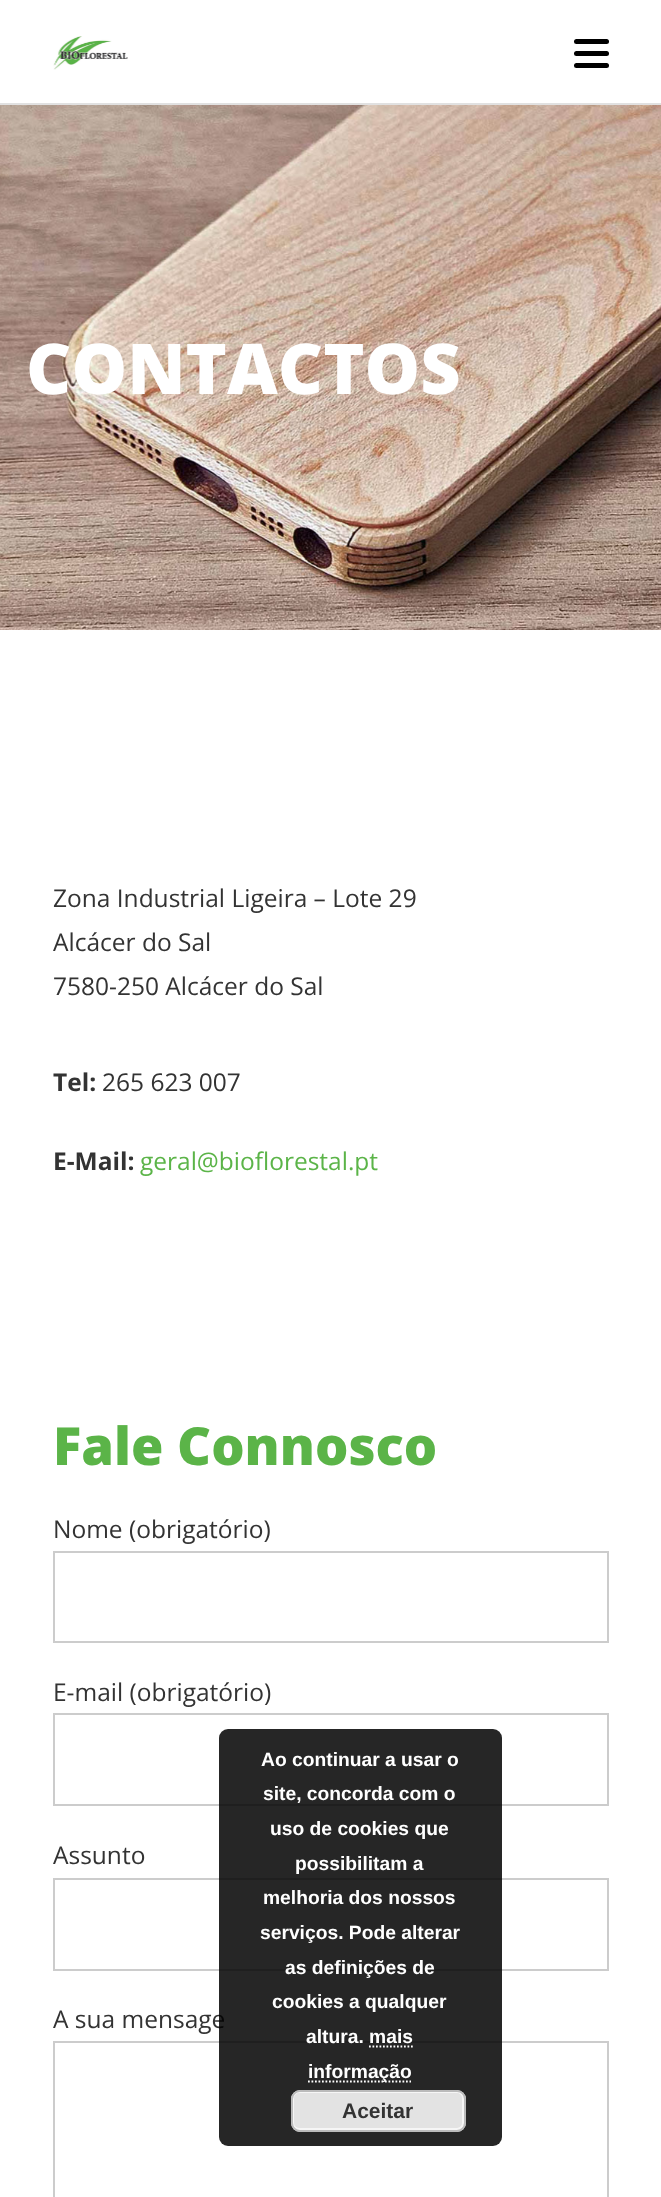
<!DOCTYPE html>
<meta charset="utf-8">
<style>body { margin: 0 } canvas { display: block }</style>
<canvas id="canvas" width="661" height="2197"></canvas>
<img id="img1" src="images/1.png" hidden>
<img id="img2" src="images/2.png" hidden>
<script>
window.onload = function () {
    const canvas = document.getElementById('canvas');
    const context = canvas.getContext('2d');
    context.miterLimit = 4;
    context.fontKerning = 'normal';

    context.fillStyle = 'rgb(255, 255, 255)';
    context.fillRect(0, 0, 661, 2197);
    context.fillStyle = 'rgb(225, 225, 225)';
    context.fillRect(0, 103, 661, 2);
    context.drawImage(document.getElementById('img1'), 53, 36, 75, 34);
    context.fillStyle = 'rgb(0, 0, 0)';
    context.beginPath();
    context.roundRect(574, 39, 35, 5, 2.5);
    context.fill();
    context.beginPath();
    context.roundRect(574, 51, 35, 5, 2.5);
    context.fill();
    context.beginPath();
    context.roundRect(574, 63, 35, 5, 2.5);
    context.fill();
    context.drawImage(document.getElementById('img2'), 0, 105, 661, 525);
    context.strokeStyle = 'rgb(204, 204, 204)';
    context.lineWidth = 2;
    context.strokeRect(54, 1552, 554, 90);
    context.strokeRect(54, 1714, 554, 91);
    context.strokeRect(54, 1879, 554, 91);
    context.strokeRect(54, 2042, 554, 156);
    context.font = '800 70px Open Sans';
    context.fillStyle = 'rgb(255, 255, 255)';
    context.fillText('CONTACTOS', 26, 394);
    context.font = '24.5px Open Sans';
    context.fillStyle = 'rgb(51, 51, 51)';
    context.fillText('Zona Industrial Ligeira – Lote 29', 53, 907);
    context.fillText('Alcácer do Sal', 53, 951);
    context.fillText('7580-250 Alcácer do Sal', 53, 995);
    context.font = 'bold 24.5px Open Sans';
    context.fillText('Tel:', 53, 1091);
    context.font = '24.5px Open Sans';
    context.fillText('265 623 007', 102, 1091);
    context.font = 'bold 24.5px Open Sans';
    context.fillText('E-Mail:', 53, 1170);
    context.font = '24.5px Open Sans';
    context.fillStyle = 'rgb(91, 180, 72)';
    context.fillText('geral@bioflorestal.pt', 140, 1170);
    context.font = '800 52.5px Open Sans';
    context.fillText('Fale Connosco', 53, 1465);
    context.font = '24.5px Open Sans';
    context.fillStyle = 'rgb(51, 51, 51)';
    context.fillText('Nome (obrigatório)', 53, 1538);
    context.fillText('E-mail (obrigatório)', 53, 1701);
    context.fillText('Assunto', 53, 1864);
    context.fillText('A sua mensage', 53, 2028);
    context.fillStyle = 'rgba(0, 0, 0, 0.85)';
    context.beginPath();
    context.roundRect(219, 1729, 283, 417, 9);
    context.fill();
    context.font = 'bold 19.25px Liberation Sans';
    context.fillStyle = 'rgb(255, 255, 255)';
    context.fillText('Ao continuar a usar o', 261, 1766);
    context.fillText('site, concorda com o', 263, 1800);
    context.fillText('uso de cookies que', 270, 1835);
    context.fillText('possibilitam a', 295, 1870);
    context.fillText('melhoria dos nossos', 263, 1904);
    context.fillText('serviços. Pode alterar', 260, 1939);
    context.fillText('as definições de', 285, 1974);
    context.fillText('cookies a qualquer', 272, 2008);
    context.fillText('altura. mais', 306, 2043);
    context.beginPath();
    context.moveTo(369, 2046.5);
    context.lineTo(413, 2046.5);
    context.strokeStyle = 'rgb(255, 255, 255)';
    context.lineWidth = 1.8;
    context.setLineDash([1.75, 1.75]);
    context.stroke();
    context.beginPath();
    context.moveTo(308, 2081.5);
    context.lineTo(411, 2081.5);
    context.stroke();
    context.fillText('informação', 308, 2078);
    context.fillStyle = 'rgb(227, 227, 227)';
    context.beginPath();
    context.roundRect(291, 2090, 175, 42, 9);
    context.fill();
    context.beginPath();
    context.roundRect(293, 2092, 170, 37, 6);
    context.strokeStyle = 'rgb(246, 246, 246)';
    context.lineWidth = 2;
    context.setLineDash([]);
    context.stroke();
    context.beginPath();
    context.roundRect(292, 2091, 173, 40, 8);
    context.strokeStyle = 'rgb(187, 187, 187)';
    context.stroke();
    context.font = 'bold 21px Liberation Sans';
    context.fillStyle = 'rgb(51, 51, 51)';
    context.fillText('Aceitar', 342, 2118);
};
</script>
